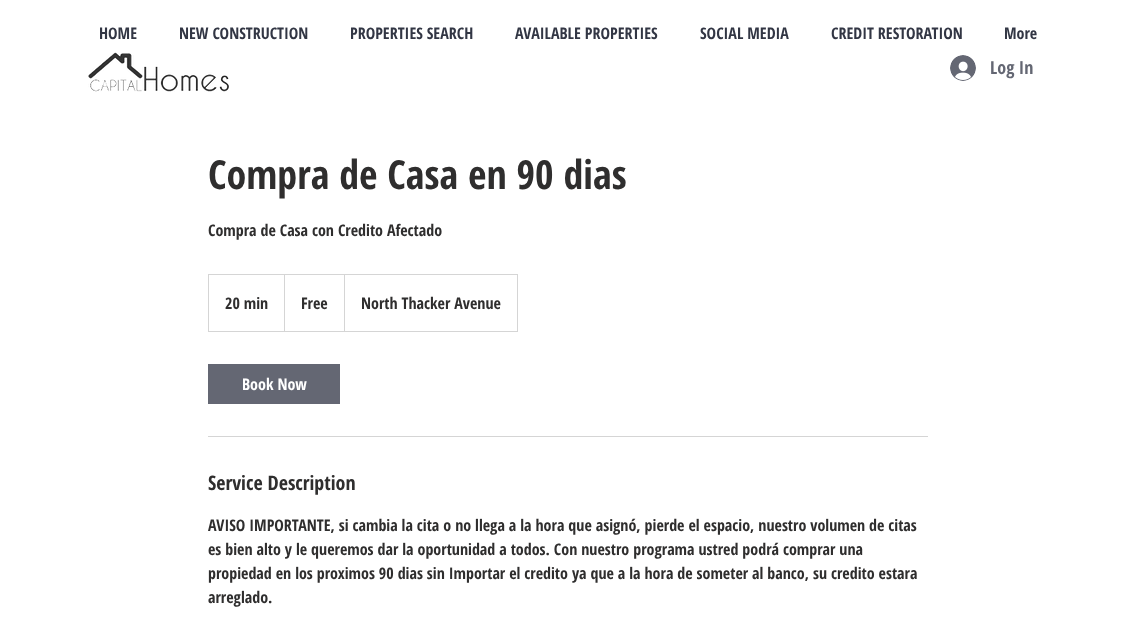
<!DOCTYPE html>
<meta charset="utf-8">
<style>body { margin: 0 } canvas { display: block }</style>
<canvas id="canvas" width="1136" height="644"></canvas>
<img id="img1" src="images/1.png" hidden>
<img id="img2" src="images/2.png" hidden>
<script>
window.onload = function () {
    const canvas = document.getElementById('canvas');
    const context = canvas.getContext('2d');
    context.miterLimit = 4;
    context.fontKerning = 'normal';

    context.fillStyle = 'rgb(255, 255, 255)';
    context.fillRect(0, 0, 1136, 644);
    context.drawImage(document.getElementById('img1'), 88, 52, 141, 40);
    context.drawImage(document.getElementById('img2'), 950, 55, 26, 26);
    context.strokeStyle = 'rgb(213, 213, 213)';
    context.strokeRect(208.5, 274.5, 309, 57);
    context.fillStyle = 'rgb(213, 213, 213)';
    context.beginPath();
    context.moveTo(284, 331);
    context.lineTo(284, 274);
    context.lineTo(285, 275);
    context.lineTo(285, 331);
    context.closePath();
    context.fill();
    context.beginPath();
    context.moveTo(344, 331);
    context.lineTo(344, 274);
    context.lineTo(345, 275);
    context.lineTo(345, 331);
    context.closePath();
    context.fill();
    context.fillStyle = 'rgb(100, 103, 115)';
    context.fillRect(208, 364, 132, 40);
    context.fillStyle = 'rgb(213, 213, 213)';
    context.fillRect(208, 436, 720, 1);
    context.font = 'bold 16px Open Sans Condensed';
    context.fillStyle = 'rgb(50, 54, 68)';
    context.fillText('HOME', 99, 39);
    context.fillText('NEW CONSTRUCTION', 179, 39);
    context.fillText('PROPERTIES SEARCH', 350, 39);
    context.fillText('AVAILABLE PROPERTIES', 515, 39);
    context.fillText('SOCIAL MEDIA', 700, 39);
    context.fillText('CREDIT RESTORATION', 831, 39);
    context.fillText('More', 1004, 39);
    context.font = 'bold 18px Open Sans Condensed';
    context.fillStyle = 'rgb(100, 103, 115)';
    context.fillText('Log In', 990, 74);
    context.font = 'bold 40px Open Sans Condensed';
    context.fillStyle = 'rgb(47, 46, 46)';
    context.fillText('Compra de Casa en 90 dias', 208, 189);
    context.font = 'bold 16px Open Sans Condensed';
    context.fillText('Compra de Casa con Credito Afectado', 208, 236);
    context.fillText('20 min', 225, 309);
    context.fillText('Free', 301, 309);
    context.fillText('North Thacker Avenue', 361, 309);
    context.fillStyle = 'rgb(255, 255, 255)';
    context.fillText('Book Now', 242, 390);
    context.font = 'bold 20px Open Sans Condensed';
    context.fillStyle = 'rgb(47, 46, 46)';
    context.fillText('Service Description', 208, 490);
    context.font = 'bold 16px Open Sans Condensed';
    context.fillText('AVISO IMPORTANTE, si cambia la cita o no llega a la hora que asignó, pierde el espacio, nuestro volumen de citas', 208, 531);
    context.fillText('es bien alto y le queremos dar la oportunidad a todos. Con nuestro programa ustred podrá comprar una', 208, 555);
    context.fillText('propiedad en los proximos 90 dias sin Importar el credito ya que a la hora de someter al banco, su credito estara', 208, 579);
    context.fillText('arreglado.', 208, 603);
};
</script>
